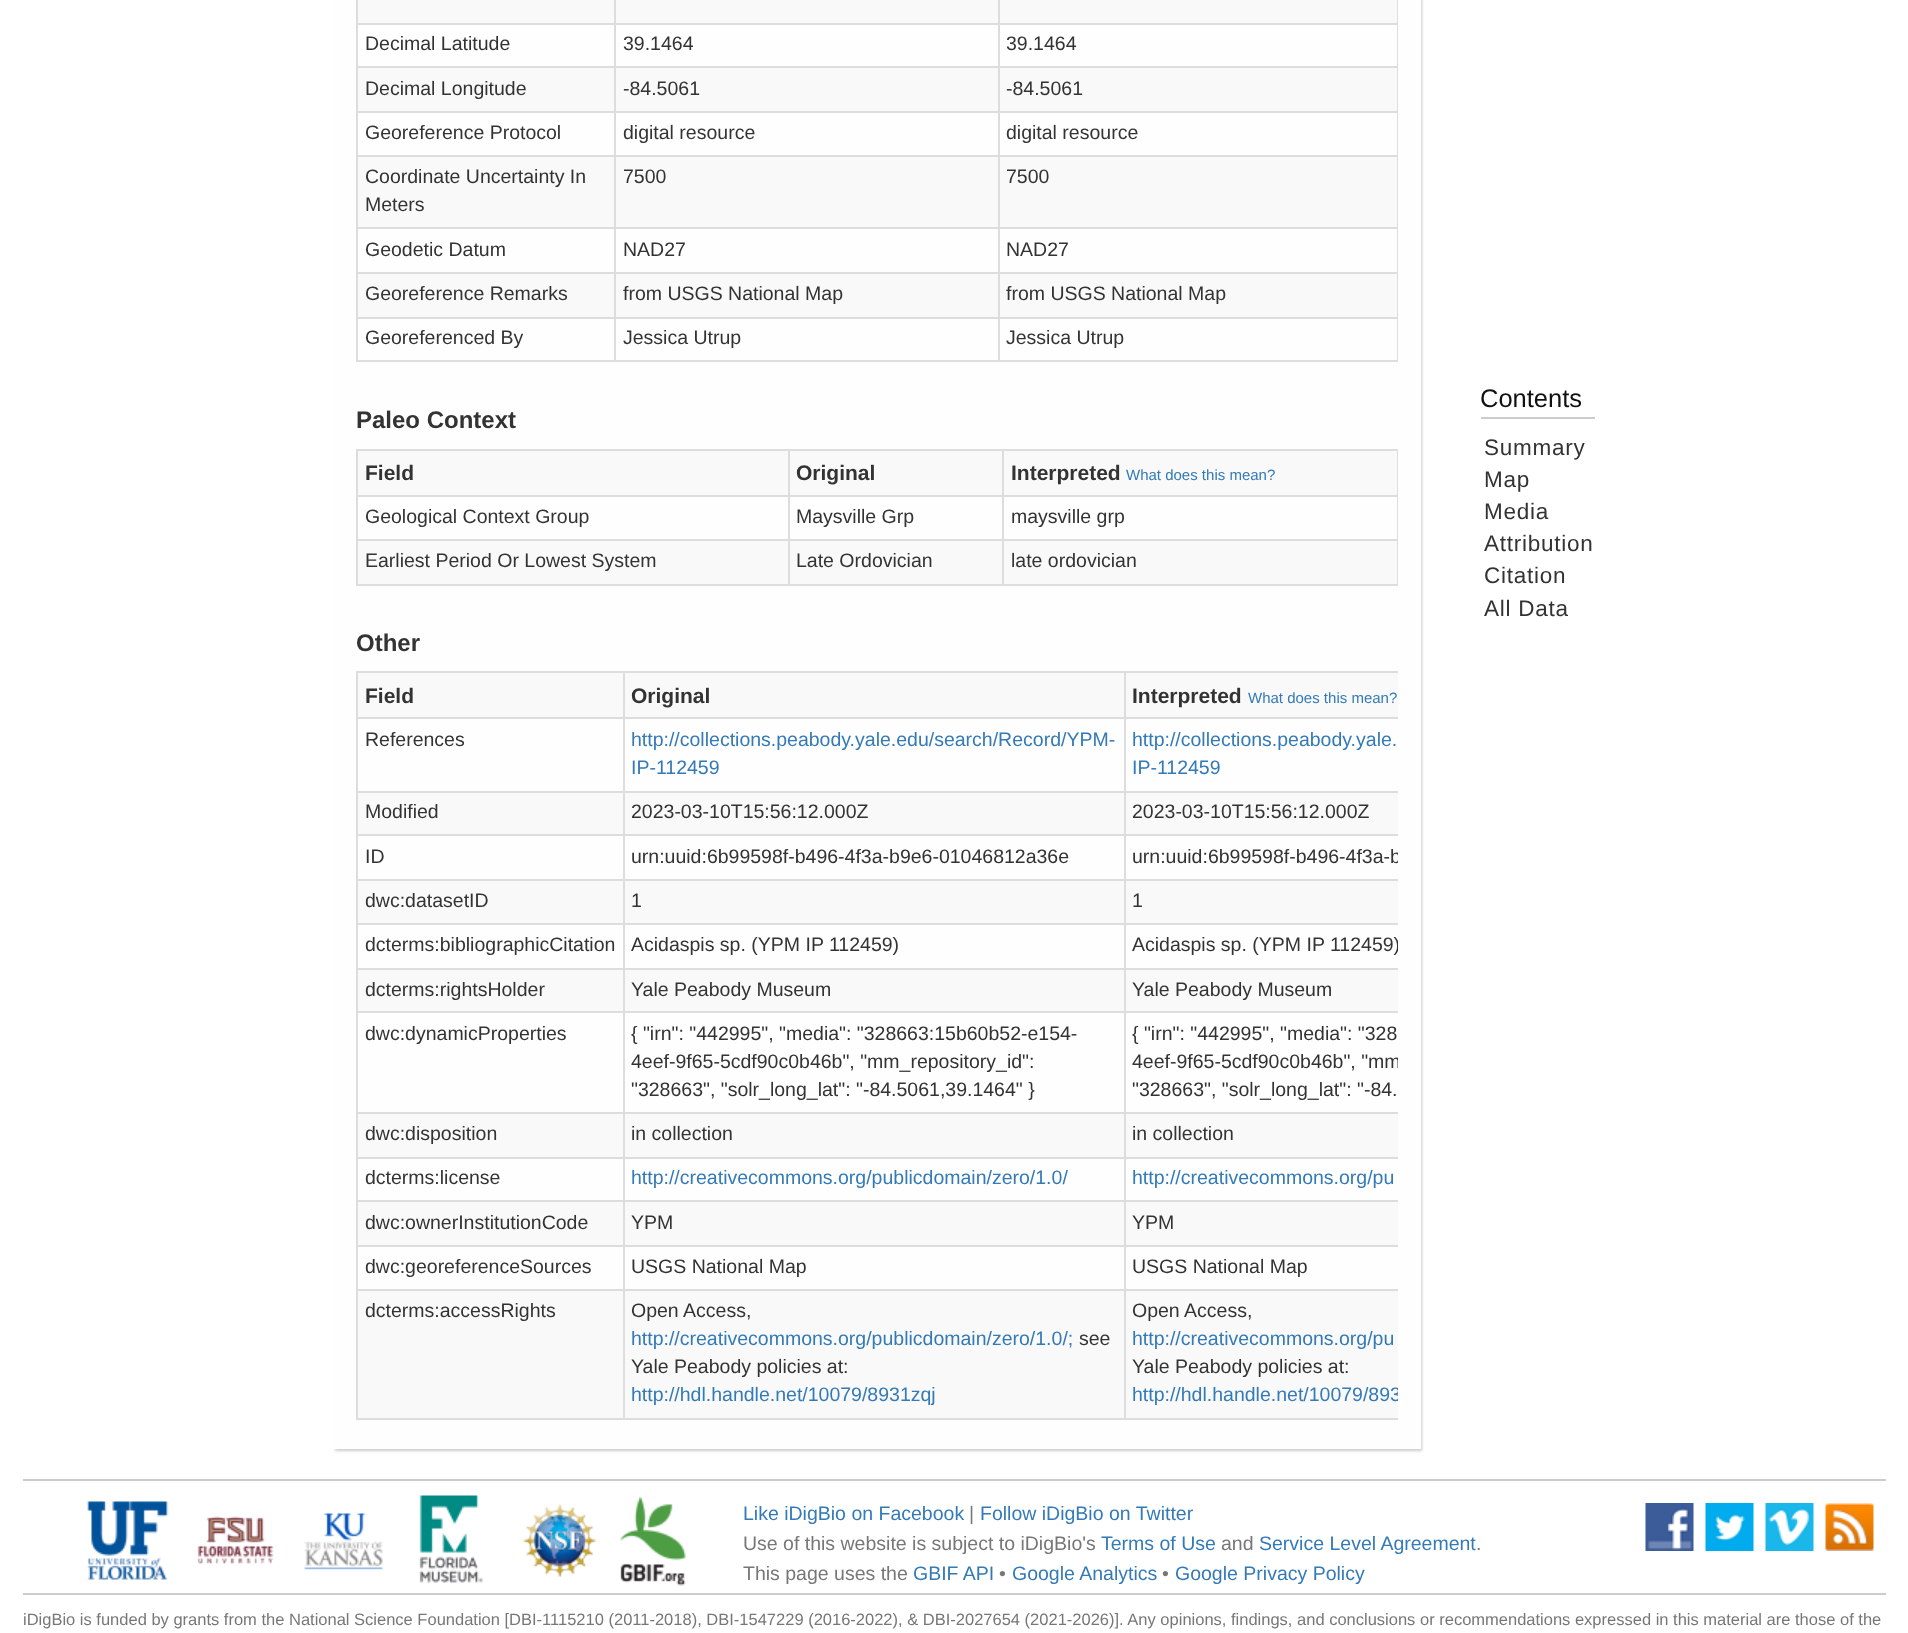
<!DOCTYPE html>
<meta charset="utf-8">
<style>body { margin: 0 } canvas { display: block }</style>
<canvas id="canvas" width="1908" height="1633"></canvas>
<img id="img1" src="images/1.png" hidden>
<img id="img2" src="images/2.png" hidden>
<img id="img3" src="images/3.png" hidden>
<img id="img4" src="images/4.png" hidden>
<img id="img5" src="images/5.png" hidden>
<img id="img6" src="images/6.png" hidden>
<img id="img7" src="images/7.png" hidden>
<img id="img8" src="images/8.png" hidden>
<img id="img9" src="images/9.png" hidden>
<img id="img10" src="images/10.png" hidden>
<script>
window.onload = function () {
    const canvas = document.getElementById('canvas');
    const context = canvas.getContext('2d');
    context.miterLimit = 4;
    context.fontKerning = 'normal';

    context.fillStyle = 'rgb(255, 255, 255)';
    context.fillRect(0, 0, 1908, 1633);
    context.fillStyle = 'rgb(204, 204, 204)';
    context.filter = 'blur(1.5px)';
    context.beginPath();
    context.rect(335, -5, 1087, 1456);
    context.fill();
    context.filter = 'none';
    context.fillStyle = 'rgb(254, 254, 254)';
    context.fillRect(333, 0, 1088, 1449);
    context.fillStyle = 'rgb(221, 221, 221)';
    context.fillRect(1397, 0, 1, 362);
    context.fillRect(356, 360, 1042, 2);
    context.fillRect(356, 0, 2, 362);
    context.fillStyle = 'rgb(249, 249, 249)';
    context.fillRect(358, 0, 1039, 23);
    context.fillStyle = 'rgb(221, 221, 221)';
    context.fillRect(998, 23, 400, 2);
    context.fillRect(998, 66, 400, 2);
    context.fillStyle = 'rgb(249, 249, 249)';
    context.fillRect(358, 68, 1039, 43);
    context.fillStyle = 'rgb(221, 221, 221)';
    context.fillRect(998, 111, 400, 2);
    context.fillRect(998, 155, 400, 2);
    context.fillStyle = 'rgb(249, 249, 249)';
    context.fillRect(358, 157, 1039, 70);
    context.fillStyle = 'rgb(221, 221, 221)';
    context.fillRect(998, 227, 400, 2);
    context.fillRect(998, 272, 400, 2);
    context.fillStyle = 'rgb(249, 249, 249)';
    context.fillRect(358, 274, 1039, 43);
    context.fillStyle = 'rgb(221, 221, 221)';
    context.fillRect(998, 317, 400, 2);
    context.fillRect(998, 317, 2, 45);
    context.fillRect(614, 317, 385, 2);
    context.fillRect(998, 272, 2, 46);
    context.fillRect(614, 272, 385, 2);
    context.fillRect(998, 227, 2, 46);
    context.fillRect(614, 227, 385, 2);
    context.fillRect(998, 155, 2, 73);
    context.fillRect(614, 155, 385, 2);
    context.fillRect(998, 111, 2, 45);
    context.fillRect(614, 111, 385, 2);
    context.fillRect(998, 66, 2, 47);
    context.fillRect(614, 66, 385, 2);
    context.fillRect(998, 23, 2, 45);
    context.fillRect(614, 23, 385, 2);
    context.fillRect(614, 317, 2, 45);
    context.fillRect(356, 317, 259, 2);
    context.fillRect(614, 272, 2, 46);
    context.fillRect(356, 272, 259, 2);
    context.fillRect(614, 227, 2, 46);
    context.fillRect(356, 227, 259, 2);
    context.fillRect(614, 155, 2, 73);
    context.fillRect(356, 155, 259, 2);
    context.fillRect(614, 111, 2, 45);
    context.fillRect(356, 111, 259, 2);
    context.fillRect(614, 66, 2, 47);
    context.fillRect(356, 66, 259, 2);
    context.fillRect(614, 23, 2, 45);
    context.fillRect(356, 23, 259, 2);
    context.fillRect(614, 0, 2, 24);
    context.fillRect(998, 0, 2, 24);
    context.fillRect(356, 449, 1042, 2);
    context.fillRect(1397, 449, 1, 136);
    context.fillRect(356, 584, 1042, 2);
    context.fillRect(356, 449, 2, 136);
    context.fillStyle = 'rgb(249, 249, 249)';
    context.fillRect(358, 451, 1039, 44);
    context.fillStyle = 'rgb(221, 221, 221)';
    context.fillRect(1002, 495, 396, 2);
    context.fillRect(1002, 539, 396, 2);
    context.fillStyle = 'rgb(249, 249, 249)';
    context.fillRect(358, 541, 1039, 43);
    context.fillStyle = 'rgb(221, 221, 221)';
    context.fillRect(1002, 539, 2, 46);
    context.fillRect(788, 539, 216, 2);
    context.fillRect(1002, 495, 2, 45);
    context.fillRect(788, 495, 216, 2);
    context.fillRect(788, 539, 2, 46);
    context.fillRect(356, 539, 433, 2);
    context.fillRect(788, 495, 2, 45);
    context.fillRect(356, 495, 433, 2);
    context.fillRect(788, 449, 2, 48);
    context.fillRect(1002, 449, 2, 48);
    context.fillRect(356, 671, 1042, 2);
    context.fillRect(356, 1418, 1042, 2);
    context.fillRect(356, 671, 2, 748);
    context.fillStyle = 'rgb(249, 249, 249)';
    context.fillRect(358, 673, 1040, 44);
    context.fillStyle = 'rgb(221, 221, 221)';
    context.fillRect(1124, 717, 274, 2);
    context.fillRect(1124, 791, 274, 2);
    context.fillStyle = 'rgb(249, 249, 249)';
    context.fillRect(358, 793, 1040, 41);
    context.fillStyle = 'rgb(221, 221, 221)';
    context.fillRect(1124, 834, 274, 2);
    context.fillRect(1124, 879, 274, 2);
    context.fillStyle = 'rgb(249, 249, 249)';
    context.fillRect(358, 881, 1040, 42);
    context.fillStyle = 'rgb(221, 221, 221)';
    context.fillRect(1124, 923, 274, 2);
    context.fillRect(1124, 968, 274, 2);
    context.fillStyle = 'rgb(249, 249, 249)';
    context.fillRect(358, 970, 1040, 41);
    context.fillStyle = 'rgb(221, 221, 221)';
    context.fillRect(1124, 1011, 274, 2);
    context.fillRect(1124, 1112, 274, 2);
    context.fillStyle = 'rgb(249, 249, 249)';
    context.fillRect(358, 1114, 1040, 43);
    context.fillStyle = 'rgb(221, 221, 221)';
    context.fillRect(1124, 1157, 274, 2);
    context.fillRect(1124, 1200, 274, 2);
    context.fillStyle = 'rgb(249, 249, 249)';
    context.fillRect(358, 1202, 1040, 43);
    context.fillStyle = 'rgb(221, 221, 221)';
    context.fillRect(1124, 1245, 274, 2);
    context.fillRect(1124, 1289, 274, 2);
    context.fillStyle = 'rgb(249, 249, 249)';
    context.fillRect(358, 1291, 1040, 127);
    context.fillStyle = 'rgb(221, 221, 221)';
    context.fillRect(1124, 1289, 2, 130);
    context.fillRect(623, 1289, 502, 2);
    context.fillRect(1124, 1245, 2, 45);
    context.fillRect(623, 1245, 502, 2);
    context.fillRect(1124, 1200, 2, 47);
    context.fillRect(623, 1200, 502, 2);
    context.fillRect(1124, 1157, 2, 45);
    context.fillRect(623, 1157, 502, 2);
    context.fillRect(1124, 1112, 2, 46);
    context.fillRect(623, 1112, 502, 2);
    context.fillRect(1124, 1011, 2, 102);
    context.fillRect(623, 1011, 502, 2);
    context.fillRect(1124, 968, 2, 45);
    context.fillRect(623, 968, 502, 2);
    context.fillRect(1124, 923, 2, 46);
    context.fillRect(623, 923, 502, 2);
    context.fillRect(1124, 879, 2, 45);
    context.fillRect(623, 879, 502, 2);
    context.fillRect(1124, 834, 2, 47);
    context.fillRect(623, 834, 502, 2);
    context.fillRect(1124, 791, 2, 45);
    context.fillRect(623, 791, 502, 2);
    context.fillRect(1124, 717, 2, 75);
    context.fillRect(623, 717, 502, 2);
    context.fillRect(623, 1289, 2, 130);
    context.fillRect(356, 1289, 268, 2);
    context.fillRect(623, 1245, 2, 45);
    context.fillRect(356, 1245, 268, 2);
    context.fillRect(623, 1200, 2, 47);
    context.fillRect(356, 1200, 268, 2);
    context.fillRect(623, 1157, 2, 45);
    context.fillRect(356, 1157, 268, 2);
    context.fillRect(623, 1112, 2, 46);
    context.fillRect(356, 1112, 268, 2);
    context.fillRect(623, 1011, 2, 102);
    context.fillRect(356, 1011, 268, 2);
    context.fillRect(623, 968, 2, 45);
    context.fillRect(356, 968, 268, 2);
    context.fillRect(623, 923, 2, 46);
    context.fillRect(356, 923, 268, 2);
    context.fillRect(623, 879, 2, 45);
    context.fillRect(356, 879, 268, 2);
    context.fillRect(623, 834, 2, 47);
    context.fillRect(356, 834, 268, 2);
    context.fillRect(623, 791, 2, 45);
    context.fillRect(356, 791, 268, 2);
    context.fillRect(623, 717, 2, 75);
    context.fillRect(356, 717, 268, 2);
    context.fillRect(623, 671, 2, 48);
    context.fillRect(1124, 671, 2, 48);
    context.fillStyle = 'rgb(204, 204, 204)';
    context.fillRect(1481, 417, 114, 2);
    context.fillRect(23, 1479, 1863, 2);
    context.drawImage(document.getElementById('img1'), 86, 1501, 83, 79);
    context.drawImage(document.getElementById('img2'), 197, 1516, 77, 48);
    context.drawImage(document.getElementById('img3'), 304, 1513, 79, 57);
    context.drawImage(document.getElementById('img4'), 419, 1495, 65, 88);
    context.drawImage(document.getElementById('img5'), 523, 1504, 73, 73);
    context.drawImage(document.getElementById('img6'), 619, 1496, 67, 90);
    context.drawImage(document.getElementById('img7'), 1645, 1503, 49, 48);
    context.drawImage(document.getElementById('img8'), 1705, 1503, 49, 48);
    context.drawImage(document.getElementById('img9'), 1765, 1503, 49, 48);
    context.drawImage(document.getElementById('img10'), 1825, 1503, 49, 48);
    context.fillRect(23, 1593, 1863, 2);
    context.font = '19.5px Liberation Sans';
    context.fillStyle = 'rgb(51, 51, 51)';
    context.fillText('Decimal Latitude', 365, 50);
    context.fillText('39.1464', 623, 50);
    context.fillText('39.1464', 1006, 50);
    context.fillText('Decimal Longitude', 365, 95);
    context.fillText('-84.5061', 623, 95);
    context.fillText('-84.5061', 1006, 95);
    context.fillText('Georeference Protocol', 365, 139);
    context.fillText('digital resource', 623, 139);
    context.fillText('digital resource', 1006, 139);
    context.fillText('Coordinate Uncertainty In', 365, 183);
    context.fillText('Meters', 365, 211);
    context.fillText('7500', 623, 183);
    context.fillText('7500', 1006, 183);
    context.fillText('Geodetic Datum', 365, 256);
    context.fillText('NAD27', 623, 256);
    context.fillText('NAD27', 1006, 256);
    context.fillText('Georeference Remarks', 365, 300);
    context.fillText('from USGS National Map', 623, 300);
    context.fillText('from USGS National Map', 1006, 300);
    context.fillText('Georeferenced By', 365, 344);
    context.fillText('Jessica Utrup', 623, 344);
    context.fillText('Jessica Utrup', 1006, 344);
    context.font = 'bold 24px Liberation Sans';
    context.fillText('Paleo Context', 356, 428);
    context.font = 'bold 21px Liberation Sans';
    context.fillText('Field', 365, 480);
    context.fillText('Original', 796, 480);
    context.fillText('Interpreted', 1011, 480);
    context.font = '15px Liberation Sans';
    context.fillStyle = 'rgb(51, 122, 183)';
    context.fillText('What does this mean?', 1126, 480);
    context.font = '19.5px Liberation Sans';
    context.fillStyle = 'rgb(51, 51, 51)';
    context.fillText('Geological Context Group', 365, 523);
    context.fillText('Maysville Grp', 796, 523);
    context.fillText('maysville grp', 1011, 523);
    context.fillText('Earliest Period Or Lowest System', 365, 567);
    context.fillText('Late Ordovician', 796, 567);
    context.fillText('late ordovician', 1011, 567);
    context.font = 'bold 24px Liberation Sans';
    context.fillText('Other', 356, 651);
    context.font = 'bold 21px Liberation Sans';
    context.fillText('Field', 365, 703);
    context.fillText('Original', 631, 703);
    context.fillText('Interpreted', 1132, 703);
    context.font = '15px Liberation Sans';
    context.fillStyle = 'rgb(51, 122, 183)';
    context.fillText('What does this mean?', 1248, 703);
    context.font = '19.5px Liberation Sans';
    context.fillStyle = 'rgb(51, 51, 51)';
    context.fillText('References', 365, 746);
    context.fillStyle = 'rgb(51, 122, 183)';
    context.fillText('http://collections.peabody.yale.edu/search/Record/YPM-', 631, 746);
    context.fillText('IP-112459', 631, 774);
    context.fillText('http://collections.peabody.yale.', 1132, 746);
    context.fillText('IP-112459', 1132, 774);
    context.fillStyle = 'rgb(51, 51, 51)';
    context.fillText('Modified', 365, 818);
    context.fillText('2023-03-10T15:56:12.000Z', 631, 818);
    context.fillText('2023-03-10T15:56:12.000Z', 1132, 818);
    context.fillText('ID', 365, 863);
    context.fillText('urn:uuid:6b99598f-b496-4f3a-b9e6-01046812a36e', 631, 863);
    context.save();
    context.beginPath();
    context.rect(356, 615, 1042, 834);
    context.clip();
    context.fillText('urn:uuid:6b99598f-b496-4f3a-b', 1132, 863);
    context.restore();
    context.fillText('dwc:datasetID', 365, 907);
    context.fillText('1', 631, 907);
    context.fillText('1', 1132, 907);
    context.fillText('dcterms:bibliographicCitation', 365, 951);
    context.fillText('Acidaspis sp. (YPM IP 112459)', 631, 951);
    context.save();
    context.beginPath();
    context.rect(356, 615, 1042, 834);
    context.clip();
    context.fillText('Acidaspis sp. (YPM IP 112459)', 1132, 951);
    context.restore();
    context.fillText('dcterms:rightsHolder', 365, 996);
    context.fillText('Yale Peabody Museum', 631, 996);
    context.fillText('Yale Peabody Museum', 1132, 996);
    context.fillText('dwc:dynamicProperties', 365, 1040);
    context.fillText('{ "irn": "442995", "media": "328663:15b60b52-e154-', 631, 1040);
    context.fillText('4eef-9f65-5cdf90c0b46b", "mm_repository_id":', 631, 1068);
    context.fillText('"328663", "solr_long_lat": "-84.5061,39.1464" }', 631, 1096);
    context.fillText('{ "irn": "442995", "media": "328', 1132, 1040);
    context.save();
    context.beginPath();
    context.rect(356, 615, 1042, 834);
    context.clip();
    context.fillText('4eef-9f65-5cdf90c0b46b", "mm', 1132, 1068);
    context.restore();
    context.fillText('"328663", "solr_long_lat": "-84.', 1132, 1096);
    context.fillText('dwc:disposition', 365, 1140);
    context.fillText('in collection', 631, 1140);
    context.fillText('in collection', 1132, 1140);
    context.fillText('dcterms:license', 365, 1184);
    context.fillStyle = 'rgb(51, 122, 183)';
    context.fillText('http://creativecommons.org/publicdomain/zero/1.0/', 631, 1184);
    context.fillText('http://creativecommons.org/pu', 1132, 1184);
    context.fillStyle = 'rgb(51, 51, 51)';
    context.fillText('dwc:ownerInstitutionCode', 365, 1229);
    context.fillText('YPM', 631, 1229);
    context.fillText('YPM', 1132, 1229);
    context.fillText('dwc:georeferenceSources', 365, 1273);
    context.fillText('USGS National Map', 631, 1273);
    context.fillText('USGS National Map', 1132, 1273);
    context.fillText('dcterms:accessRights', 365, 1317);
    context.fillText('Open Access,', 631, 1317);
    context.fillStyle = 'rgb(51, 122, 183)';
    context.fillText('http://creativecommons.org/publicdomain/zero/1.0/;', 631, 1345);
    context.fillStyle = 'rgb(51, 51, 51)';
    context.fillText('see', 1079, 1345);
    context.fillText('Yale Peabody policies at:', 631, 1373);
    context.fillStyle = 'rgb(51, 122, 183)';
    context.fillText('http://hdl.handle.net/10079/8931zqj', 631, 1401);
    context.fillStyle = 'rgb(51, 51, 51)';
    context.fillText('Open Access,', 1132, 1317);
    context.fillStyle = 'rgb(51, 122, 183)';
    context.fillText('http://creativecommons.org/pu', 1132, 1345);
    context.fillStyle = 'rgb(51, 51, 51)';
    context.fillText('Yale Peabody policies at:', 1132, 1373);
    context.save();
    context.beginPath();
    context.rect(356, 615, 1042, 834);
    context.clip();
    context.fillStyle = 'rgb(51, 122, 183)';
    context.fillText('http://hdl.handle.net/10079/893', 1132, 1401);
    context.restore();
    context.font = '25.5px Liberation Sans';
    context.fillStyle = 'rgb(17, 17, 17)';
    context.fillText('Contents', 1480, 407);
    context.letterSpacing = '0.75px';
    context.font = '22.5px Liberation Sans';
    context.fillStyle = 'rgb(51, 51, 51)';
    context.fillText('Summary', 1484, 455);
    context.fillText('Map', 1484, 487);
    context.fillText('Media', 1484, 519);
    context.fillText('Attribution', 1484, 551);
    context.fillText('Citation', 1484, 583);
    context.fillText('All Data', 1484, 616);
    context.letterSpacing = '0px';
    context.font = '19.5px Liberation Sans';
    context.fillStyle = 'rgb(51, 122, 183)';
    context.fillText('Like iDigBio on Facebook', 743, 1520);
    context.fillStyle = 'rgb(119, 119, 119)';
    context.fillText('|', 969, 1520);
    context.fillStyle = 'rgb(51, 122, 183)';
    context.fillText('Follow iDigBio on Twitter', 980, 1520);
    context.fillStyle = 'rgb(119, 119, 119)';
    context.fillText('Use of this website is subject to iDigBio\'s', 743, 1550);
    context.fillStyle = 'rgb(51, 122, 183)';
    context.fillText('Terms of Use', 1101, 1550);
    context.fillStyle = 'rgb(119, 119, 119)';
    context.fillText('and', 1221, 1550);
    context.fillStyle = 'rgb(51, 122, 183)';
    context.fillText('Service Level Agreement', 1259, 1550);
    context.fillStyle = 'rgb(119, 119, 119)';
    context.fillText('.', 1476, 1550);
    context.fillText('This page uses the', 743, 1580);
    context.fillStyle = 'rgb(51, 122, 183)';
    context.fillText('GBIF API', 913, 1580);
    context.fillStyle = 'rgb(119, 119, 119)';
    context.fillText('•', 999, 1580);
    context.fillStyle = 'rgb(51, 122, 183)';
    context.fillText('Google Analytics', 1012, 1580);
    context.fillStyle = 'rgb(119, 119, 119)';
    context.fillText('•', 1162, 1580);
    context.fillStyle = 'rgb(51, 122, 183)';
    context.fillText('Google Privacy Policy', 1175, 1580);
    context.font = '16.5px Liberation Sans';
    context.fillStyle = 'rgb(119, 119, 119)';
    context.fillText('iDigBio is funded by grants from the National Science Foundation [DBI-1115210 (2011-2018), DBI-1547229 (2016-2022), & DBI-2027654 (2021-2026)]. Any opinions, findings, and conclusions or recommendations expressed in this material are those of the', 23, 1625);
};
</script>
